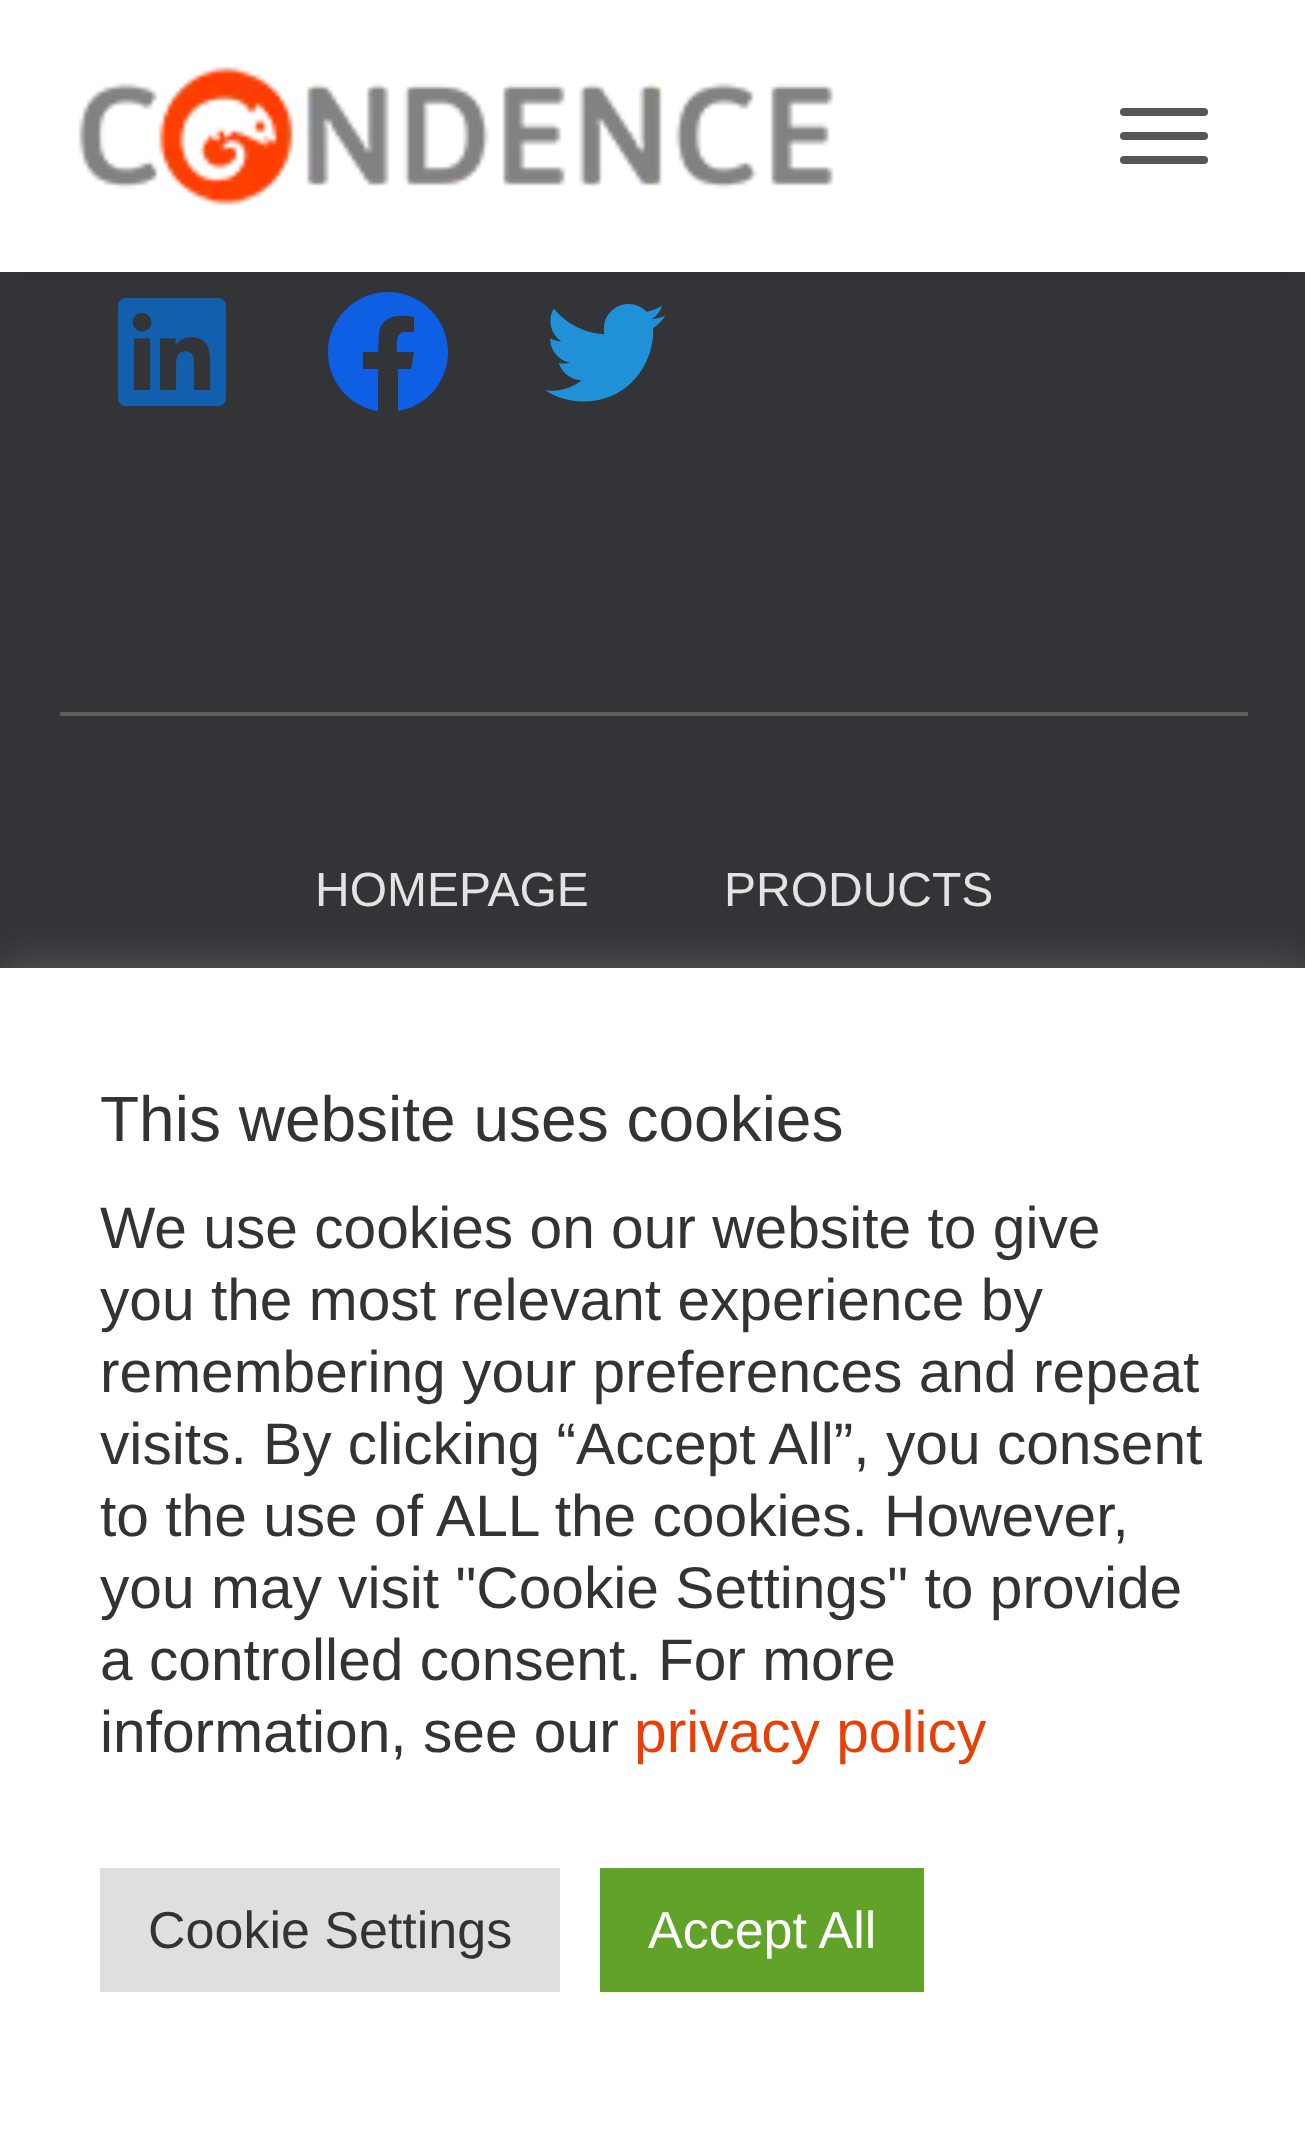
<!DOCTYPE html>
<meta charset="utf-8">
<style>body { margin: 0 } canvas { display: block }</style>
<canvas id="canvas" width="1305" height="2150"></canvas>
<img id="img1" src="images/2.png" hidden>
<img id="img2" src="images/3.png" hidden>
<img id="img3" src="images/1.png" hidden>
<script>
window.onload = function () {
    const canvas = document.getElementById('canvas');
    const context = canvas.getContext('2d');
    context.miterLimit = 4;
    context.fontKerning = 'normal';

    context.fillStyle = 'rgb(50, 52, 55)';
    context.fillRect(0, 0, 1305, 2150);
    context.drawImage(document.getElementById('img1'), 118, 298, 108, 108);
    context.fillStyle = 'rgb(14, 95, 227)';
    context.beginPath();
    context.moveTo(388, 292);
    context.bezierCurveTo(355, 292, 328, 319, 328, 352);
    context.bezierCurveTo(328, 382, 350, 407, 378, 411);
    context.lineTo(378, 369);
    context.lineTo(363, 369);
    context.lineTo(363, 352);
    context.lineTo(378, 352);
    context.lineTo(379, 333);
    context.bezierCurveTo(382, 315, 399, 314, 414, 317);
    context.lineTo(414, 332);
    context.lineTo(404, 332);
    context.bezierCurveTo(395, 333, 397, 345, 397, 352);
    context.lineTo(414, 352);
    context.lineTo(411, 369);
    context.lineTo(398, 369);
    context.lineTo(398, 411);
    context.bezierCurveTo(426, 407, 448, 382, 448, 352);
    context.bezierCurveTo(448, 319, 421, 292, 388, 292);
    context.closePath();
    context.fill();
    context.drawImage(document.getElementById('img2'), 545, 304, 121, 98);
    context.fillStyle = 'rgba(0, 0, 0, 0.42)';
    context.filter = 'blur(20px)';
    context.beginPath();
    context.rect(24, 28, 1260, 224);
    context.fill();
    context.filter = 'none';
    context.fillStyle = 'rgb(255, 255, 255)';
    context.fillRect(0, 0, 1305, 272);
    context.drawImage(document.getElementById('img3'), 78, 66, 756, 140);
    context.fillStyle = 'rgb(85, 85, 85)';
    context.beginPath();
    context.roundRect(1120, 108, 88, 8, 4);
    context.fill();
    context.beginPath();
    context.roundRect(1120, 132, 88, 8, 4);
    context.fill();
    context.beginPath();
    context.roundRect(1120, 156, 88, 8, 4);
    context.fill();
    context.fillStyle = 'rgb(94, 94, 94)';
    context.fillRect(60, 712, 1188, 4);
    context.fillStyle = 'rgba(172, 171, 171, 0.3)';
    context.filter = 'blur(20px)';
    context.beginPath();
    context.rect(0, 964, 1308, 1184);
    context.fill();
    context.filter = 'none';
    context.fillStyle = 'rgb(255, 255, 255)';
    context.fillRect(0, 968, 1305, 1182);
    context.fillStyle = 'rgb(222, 223, 224)';
    context.fillRect(100, 1868, 460, 124);
    context.fillStyle = 'rgb(97, 162, 41)';
    context.fillRect(600, 1868, 324, 124);
    context.font = '48px Liberation Sans';
    context.fillStyle = 'rgb(226, 227, 227)';
    context.fillText('HOMEPAGE', 315, 906);
    context.fillText('PRODUCTS', 724, 906);
    context.font = '64px Liberation Sans';
    context.fillStyle = 'rgb(51, 51, 51)';
    context.fillText('This website uses cookies', 100, 1141);
    context.font = '58.7px Liberation Sans';
    context.fillText('We use cookies on our website to give', 100, 1248);
    context.fillText('you the most relevant experience by', 100, 1320);
    context.fillText('remembering your preferences and repeat', 100, 1392);
    context.fillText('visits. By clicking “Accept All”, you consent', 100, 1464);
    context.fillText('to the use of ALL the cookies. However,', 100, 1536);
    context.fillText('you may visit "Cookie Settings" to provide', 100, 1608);
    context.fillText('a controlled consent. For more', 100, 1680);
    context.fillText('information, see our', 100, 1752);
    context.fillStyle = 'rgb(230, 64, 7)';
    context.fillText('privacy policy', 634, 1752);
    context.font = '52px Liberation Sans';
    context.fillStyle = 'rgb(51, 51, 51)';
    context.fillText('Cookie Settings', 148, 1948);
    context.fillStyle = 'rgb(255, 255, 255)';
    context.fillText('Accept All', 648, 1948);
};
</script>
